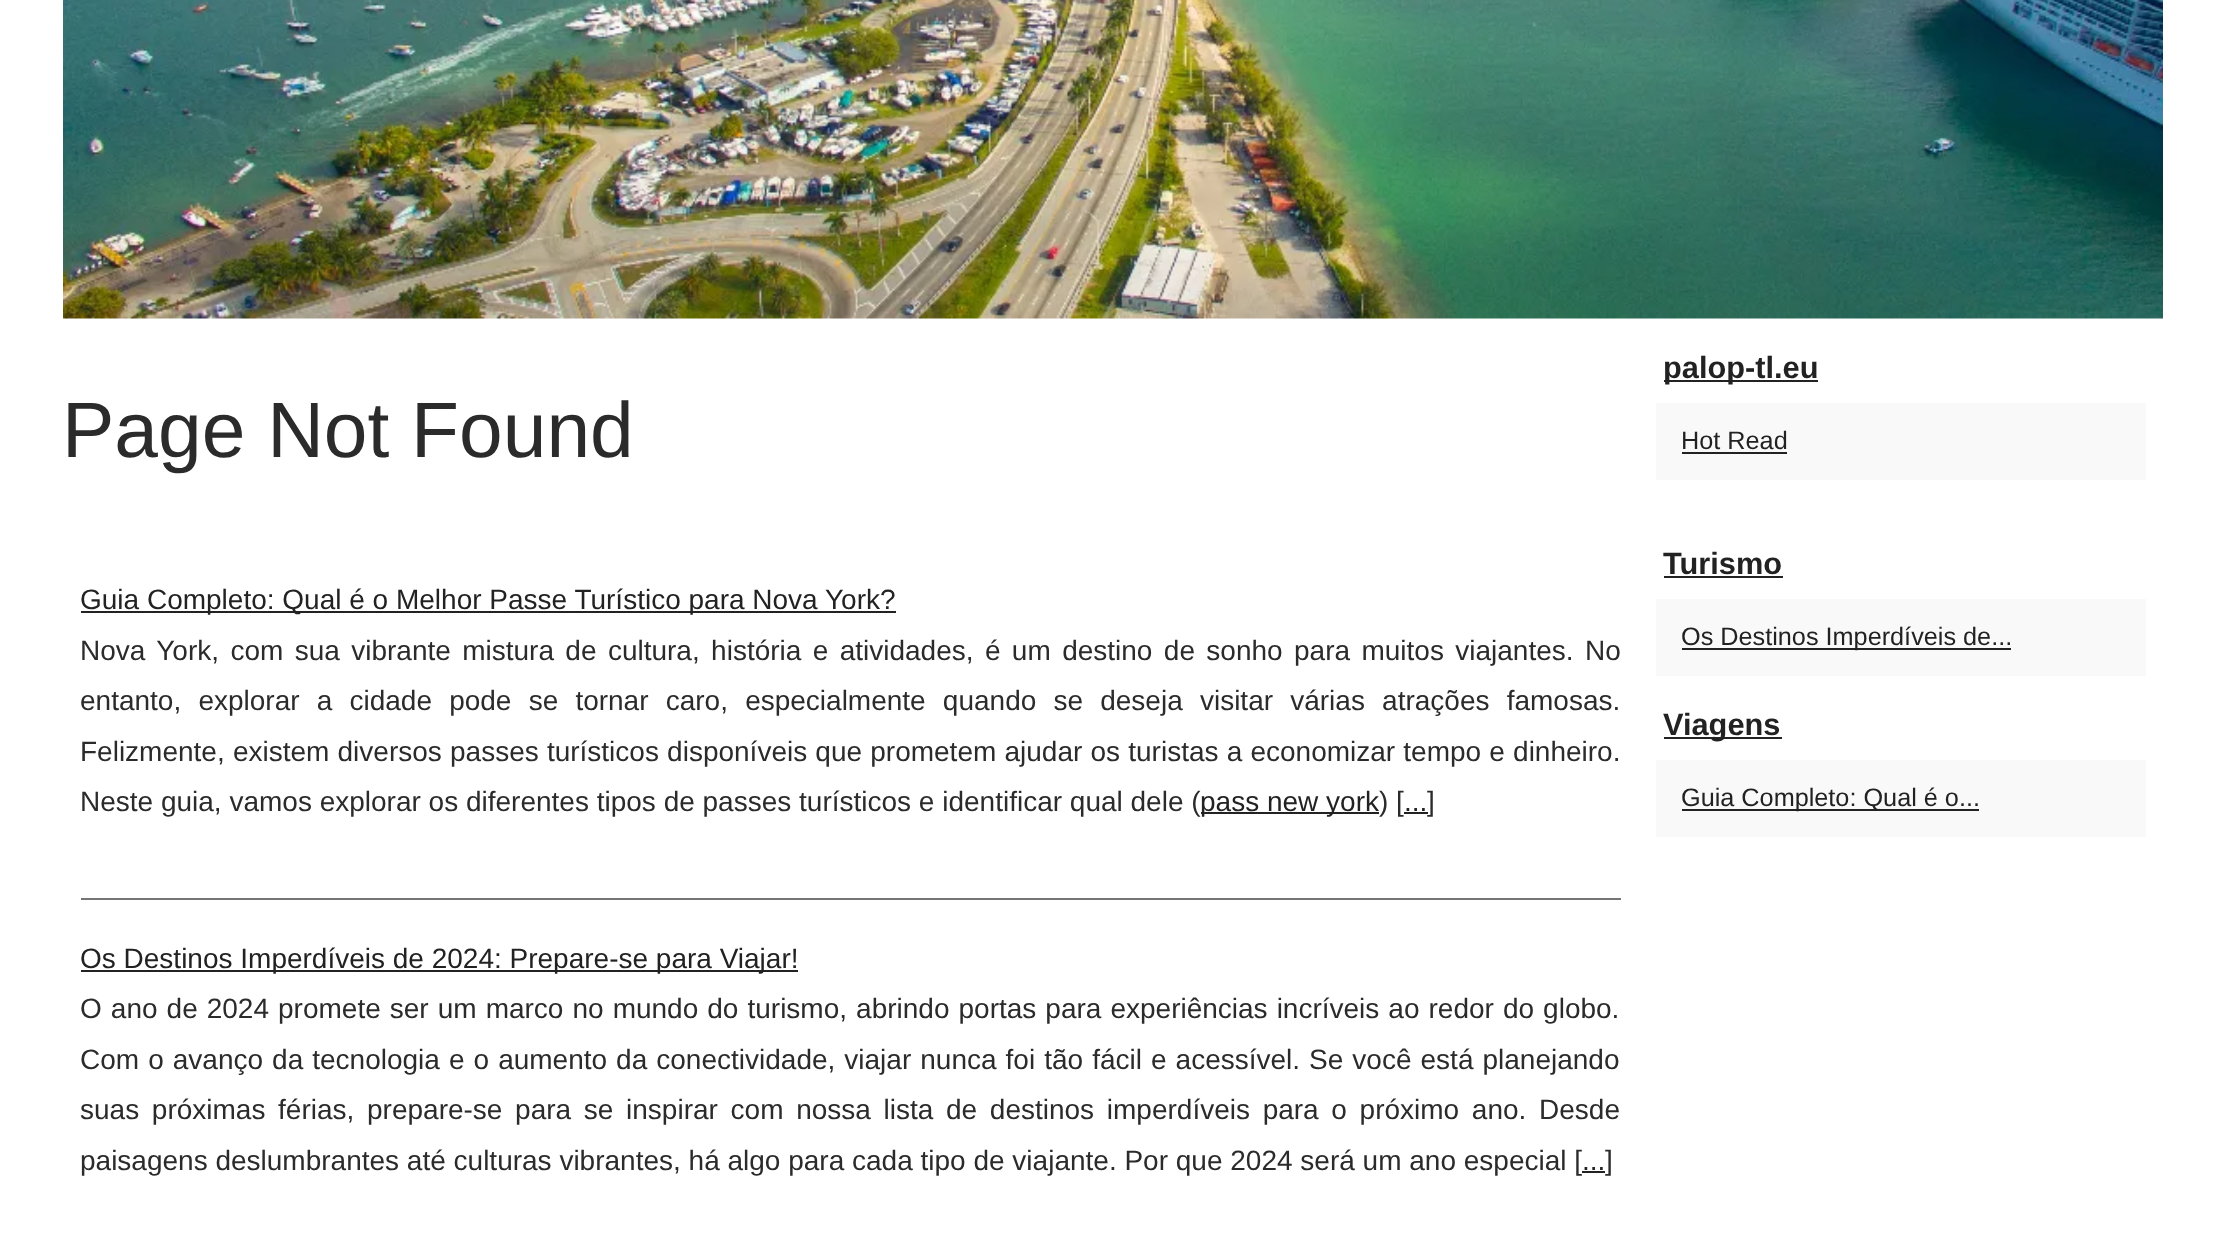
<!DOCTYPE html>
<meta charset="utf-8">
<style>body { margin: 0 } canvas { display: block }</style>
<canvas id="canvas" width="2224" height="1238"></canvas>
<img id="img1" src="images/1.png" hidden>
<script>
window.onload = function () {
    const canvas = document.getElementById('canvas');
    const context = canvas.getContext('2d');
    context.miterLimit = 4;
    context.fontKerning = 'normal';

    context.fillStyle = 'rgb(255, 255, 255)';
    context.fillRect(0, 0, 2224, 1238);
    context.drawImage(document.getElementById('img1'), 63, 0, 2100, 319);
    context.fillStyle = 'rgb(34, 34, 34)';
    context.fillRect(81, 611, 815, 2);
    context.fillRect(1201, 812, 178, 2);
    context.fillRect(1404, 812, 24, 2);
    context.fillStyle = 'rgb(117, 117, 117)';
    context.fillRect(81, 898, 1540, 2);
    context.fillStyle = 'rgb(34, 34, 34)';
    context.fillRect(81, 970, 717, 2);
    context.fillRect(1582, 1171, 23, 2);
    context.fillRect(1664, 380, 154, 2);
    context.fillStyle = 'rgb(249, 249, 249)';
    context.fillRect(1656, 403, 490, 77);
    context.fillStyle = 'rgb(34, 34, 34)';
    context.fillRect(1682, 452, 105, 2);
    context.fillRect(1664, 576, 119, 2);
    context.fillStyle = 'rgb(249, 249, 249)';
    context.fillRect(1656, 599, 490, 77);
    context.fillStyle = 'rgb(34, 34, 34)';
    context.fillRect(1682, 648, 329, 2);
    context.fillRect(1664, 737, 118, 2);
    context.fillStyle = 'rgb(249, 249, 249)';
    context.fillRect(1656, 760, 490, 77);
    context.fillStyle = 'rgb(34, 34, 34)';
    context.fillRect(1682, 809, 297, 2);
    context.font = '78.5px Liberation Sans';
    context.fillStyle = 'rgb(43, 43, 43)';
    context.fillText('Page Not Found', 62, 457);
    context.font = '28px Liberation Sans';
    context.fillStyle = 'rgb(34, 34, 34)';
    context.fillText('Guia Completo: Qual é o Melhor Passe Turístico para Nova York?', 80, 609);
    context.wordSpacing = '3.6px';
    context.fillStyle = 'rgb(43, 43, 43)';
    context.fillText('Nova York, com sua vibrante mistura de cultura, história e atividades, é um destino de sonho para muitos viajantes. No', 80, 660);
    context.wordSpacing = '9.4px';
    context.fillText('entanto, explorar a cidade pode se tornar caro, especialmente quando se deseja visitar várias atrações famosas.', 80, 710);
    context.wordSpacing = '0.4px';
    context.fillText('Felizmente, existem diversos passes turísticos disponíveis que prometem ajudar os turistas a economizar tempo e dinheiro.', 80, 761);
    context.wordSpacing = '0px';
    context.fillText('Neste guia, vamos explorar os diferentes tipos de passes turísticos e identificar qual dele (', 80, 811);
    context.fillStyle = 'rgb(34, 34, 34)';
    context.fillText('pass new york', 1200, 811);
    context.fillStyle = 'rgb(43, 43, 43)';
    context.fillText(') [', 1379, 811);
    context.fillStyle = 'rgb(34, 34, 34)';
    context.fillText('...', 1404, 811);
    context.fillStyle = 'rgb(43, 43, 43)';
    context.fillText(']', 1427, 811);
    context.fillStyle = 'rgb(34, 34, 34)';
    context.fillText('Os Destinos Imperdíveis de 2024: Prepare-se para Viajar!', 80, 968);
    context.wordSpacing = '1.25px';
    context.fillStyle = 'rgb(43, 43, 43)';
    context.fillText('O ano de 2024 promete ser um marco no mundo do turismo, abrindo portas para experiências incríveis ao redor do globo.', 80, 1018);
    context.fillText('Com o avanço da tecnologia e o aumento da conectividade, viajar nunca foi tão fácil e acessível. Se você está planejando', 80, 1069);
    context.wordSpacing = '4.9px';
    context.fillText('suas próximas férias, prepare-se para se inspirar com nossa lista de destinos imperdíveis para o próximo ano. Desde', 80, 1119);
    context.wordSpacing = '0px';
    context.fillText('paisagens deslumbrantes até culturas vibrantes, há algo para cada tipo de viajante. Por que 2024 será um ano especial [', 80, 1170);
    context.fillStyle = 'rgb(34, 34, 34)';
    context.fillText('...', 1582, 1170);
    context.fillStyle = 'rgb(43, 43, 43)';
    context.fillText(']', 1605, 1170);
    context.font = 'bold 30.75px Liberation Sans';
    context.fillStyle = 'rgb(34, 34, 34)';
    context.fillText('palop-tl.eu', 1663, 378);
    context.font = '25.25px Liberation Sans';
    context.fillText('Hot Read', 1681, 449);
    context.font = 'bold 30.75px Liberation Sans';
    context.fillText('Turismo', 1663, 574);
    context.font = '25.25px Liberation Sans';
    context.fillText('Os Destinos Imperdíveis de...', 1681, 645);
    context.font = 'bold 30.75px Liberation Sans';
    context.fillText('Viagens', 1663, 735);
    context.font = '25.25px Liberation Sans';
    context.fillText('Guia Completo: Qual é o...', 1681, 806);
};
</script>
